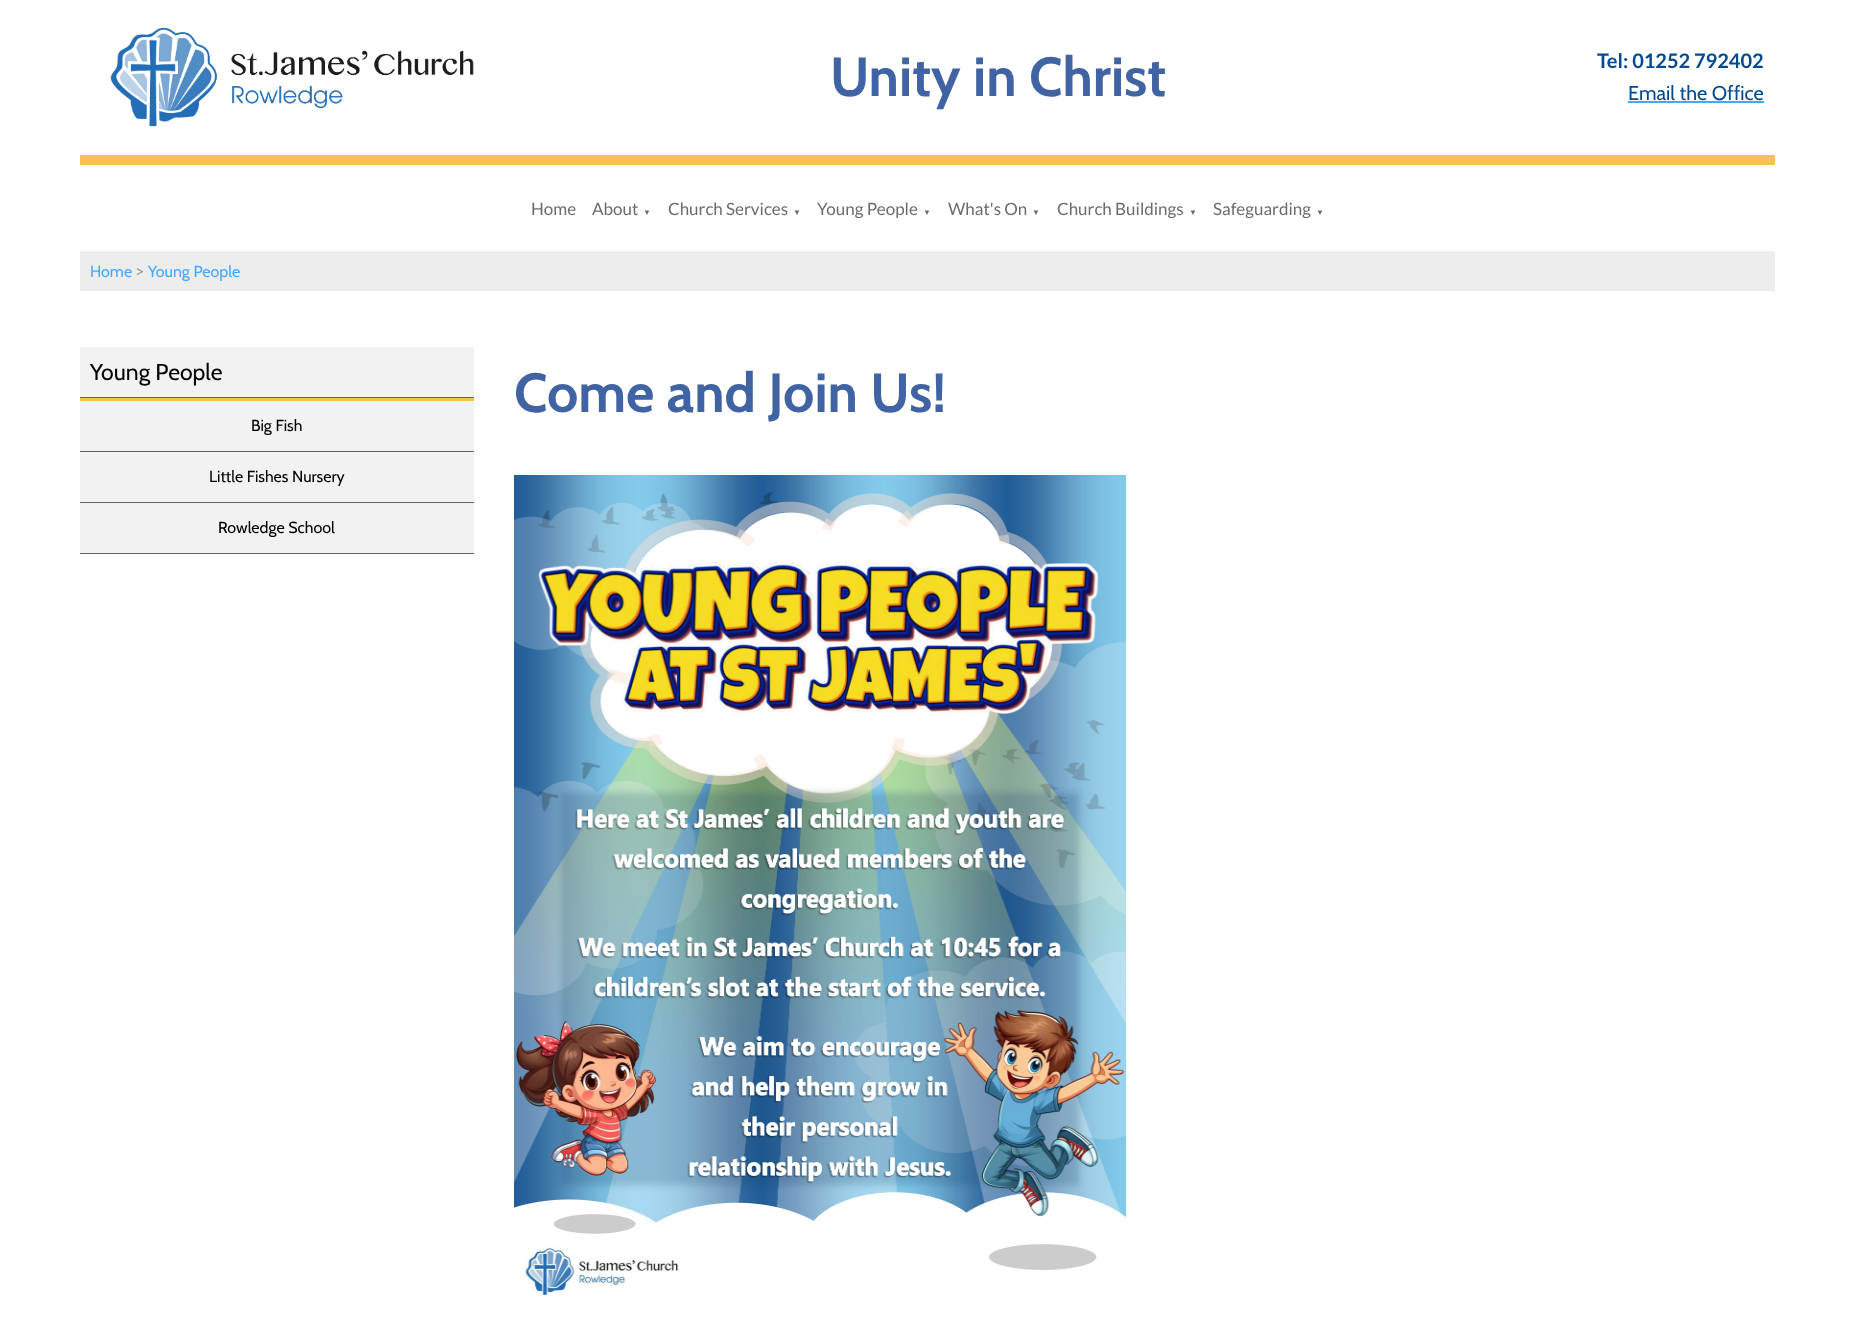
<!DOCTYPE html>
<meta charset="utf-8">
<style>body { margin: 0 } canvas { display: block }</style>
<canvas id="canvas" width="1855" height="1333"></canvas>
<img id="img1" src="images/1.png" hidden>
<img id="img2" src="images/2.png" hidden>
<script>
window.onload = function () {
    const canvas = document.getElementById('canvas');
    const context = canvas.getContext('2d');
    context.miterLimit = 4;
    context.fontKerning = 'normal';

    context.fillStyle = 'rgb(255, 255, 255)';
    context.fillRect(0, 0, 1855, 1333);
    context.drawImage(document.getElementById('img1'), 110, 27, 364, 100);
    context.fillStyle = 'rgb(69, 167, 255)';
    context.fillRect(1628, 101, 136, 2);
    context.fillStyle = 'rgb(249, 192, 88)';
    context.fillRect(80, 155, 1695, 10);
    context.fillStyle = 'rgb(237, 237, 237)';
    context.fillRect(80, 251, 1695, 40);
    context.fillStyle = 'rgb(242, 242, 242)';
    context.fillRect(80, 347, 394, 206);
    context.fillStyle = 'rgb(249, 192, 88)';
    context.fillRect(80, 398, 394, 3);
    context.fillStyle = 'rgb(98, 98, 98)';
    context.fillRect(80, 397, 394, 1);
    context.fillRect(80, 451, 394, 1);
    context.fillRect(80, 502, 394, 1);
    context.fillRect(80, 553, 394, 1);
    context.drawImage(document.getElementById('img2'), 514, 475, 612, 823);
    context.font = 'bold 55px Cabin';
    context.fillStyle = 'rgb(64, 99, 163)';
    context.fillText('Unity in Christ', 830, 96);
    context.font = 'bold 20px Lato';
    context.fillStyle = 'rgb(1, 73, 145)';
    context.fillText('Tel: 01252 792402', 1597, 68);
    context.font = '20px Cabin';
    context.fillText('Email the Office', 1628, 100);
    context.font = '17px Lato';
    context.fillStyle = 'rgb(108, 108, 108)';
    context.fillText('Home', 531, 215);
    context.fillText('About', 592, 215);
    context.font = '8px Liberation Serif';
    context.fillText('▼', 643, 215);
    context.font = '17px Lato';
    context.fillText('Church Services', 668, 215);
    context.font = '8px Liberation Serif';
    context.fillText('▼', 793, 215);
    context.font = '17px Lato';
    context.fillText('Young People', 817, 215);
    context.font = '8px Liberation Serif';
    context.fillText('▼', 923, 215);
    context.font = '17px Lato';
    context.fillText('What\'s On', 948, 215);
    context.font = '8px Liberation Serif';
    context.fillText('▼', 1032, 215);
    context.font = '17px Lato';
    context.fillText('Church Buildings', 1057, 215);
    context.font = '8px Liberation Serif';
    context.fillText('▼', 1189, 215);
    context.font = '17px Lato';
    context.fillText('Safeguarding', 1213, 215);
    context.font = '8px Liberation Serif';
    context.fillText('▼', 1316, 215);
    context.font = '16px Cabin';
    context.fillStyle = 'rgb(69, 167, 255)';
    context.fillText('Home', 90, 277);
    context.font = '16px Lato';
    context.fillStyle = 'rgb(153, 153, 153)';
    context.fillText('>', 135, 277);
    context.font = '16px Cabin';
    context.fillStyle = 'rgb(69, 167, 255)';
    context.fillText('Young People', 148, 277);
    context.font = '23px Cabin';
    context.fillStyle = 'rgb(0, 0, 0)';
    context.fillText('Young People', 90, 380);
    context.font = '16px Cabin';
    context.fillText('Big Fish', 251, 431);
    context.fillText('Little Fishes Nursery', 209, 482);
    context.fillText('Rowledge School', 218, 533);
    context.font = 'bold 55px Cabin';
    context.fillStyle = 'rgb(64, 99, 163)';
    context.fillText('Come and Join Us!', 514, 412);
};
</script>
